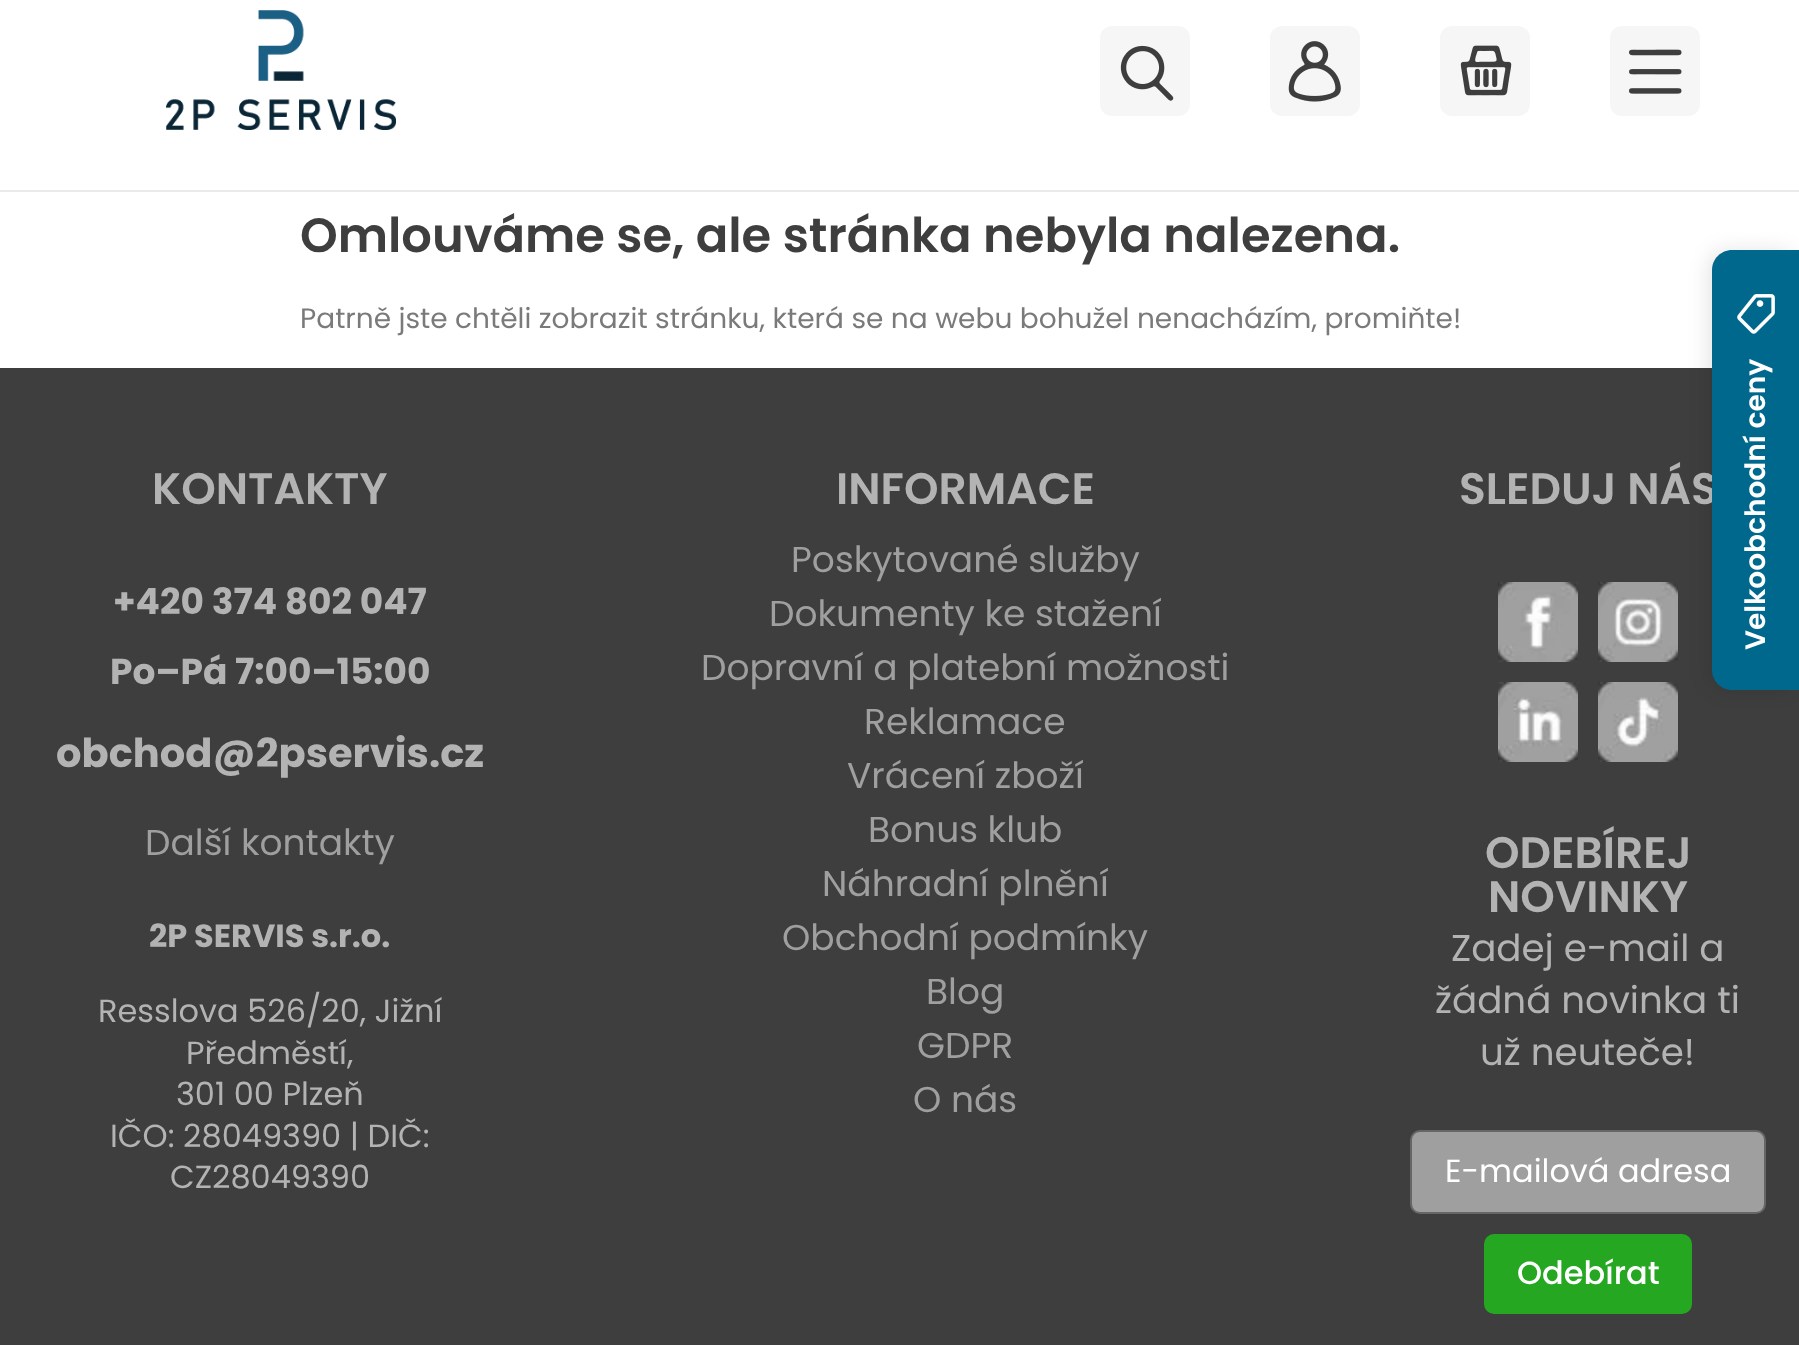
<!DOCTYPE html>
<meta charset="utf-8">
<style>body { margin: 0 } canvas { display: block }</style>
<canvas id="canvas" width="1799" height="1345"></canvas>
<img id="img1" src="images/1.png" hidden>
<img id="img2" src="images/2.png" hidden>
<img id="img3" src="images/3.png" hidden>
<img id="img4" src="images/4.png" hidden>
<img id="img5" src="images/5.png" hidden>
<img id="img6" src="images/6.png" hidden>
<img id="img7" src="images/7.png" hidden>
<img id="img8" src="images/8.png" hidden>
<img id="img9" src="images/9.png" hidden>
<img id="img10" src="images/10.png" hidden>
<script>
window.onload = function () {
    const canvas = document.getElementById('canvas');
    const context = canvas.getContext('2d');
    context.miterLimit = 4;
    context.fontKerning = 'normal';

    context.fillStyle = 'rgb(255, 255, 255)';
    context.fillRect(0, 0, 1799, 1345);
    context.fillStyle = 'rgb(234, 234, 234)';
    context.fillRect(0, 190, 1799, 2);
    context.drawImage(document.getElementById('img1'), 166, 10, 230, 120);
    context.fillStyle = 'rgb(246, 246, 246)';
    context.beginPath();
    context.roundRect(1100, 26, 90, 90, 12);
    context.fill();
    context.drawImage(document.getElementById('img2'), 1120, 45, 54, 56);
    context.beginPath();
    context.roundRect(1270, 26, 90, 90, 12);
    context.fill();
    context.drawImage(document.getElementById('img3'), 1288, 41, 53, 61);
    context.beginPath();
    context.roundRect(1440, 26, 90, 90, 12);
    context.fill();
    context.drawImage(document.getElementById('img4'), 1460, 45, 52, 51);
    context.beginPath();
    context.roundRect(1610, 26, 90, 90, 12);
    context.fill();
    context.drawImage(document.getElementById('img5'), 1629, 49, 53, 45);
    context.fillStyle = 'rgb(62, 62, 62)';
    context.fillRect(0, 368, 1799, 977);
    context.drawImage(document.getElementById('img6'), 1498, 582, 80, 80);
    context.drawImage(document.getElementById('img7'), 1598, 582, 80, 80);
    context.drawImage(document.getElementById('img8'), 1498, 682, 80, 80);
    context.drawImage(document.getElementById('img9'), 1598, 682, 80, 80);
    context.fillStyle = 'rgb(159, 159, 159)';
    context.beginPath();
    context.roundRect(1411, 1131, 354, 82, 9);
    context.fill();
    context.strokeStyle = 'rgb(102, 102, 102)';
    context.lineWidth = 2;
    context.stroke();
    context.fillStyle = 'rgb(37, 167, 34)';
    context.beginPath();
    context.roundRect(1484, 1234, 208, 80, 10);
    context.fill();
    context.fillStyle = 'rgba(0, 0, 0, 0.1)';
    context.filter = 'blur(10px)';
    context.beginPath();
    context.roundRect(1708, 250, 88, 440, 20);
    context.fill();
    context.filter = 'none';
    context.font = '600 48px Poppins';
    context.fillStyle = 'rgb(62, 62, 62)';
    context.fillText('Omlouváme se, ale stránka nebyla nalezena.', 300, 252);
    context.font = '28px Poppins';
    context.fillStyle = 'rgb(122, 122, 122)';
    context.fillText('Patrně jste chtěli zobrazit stránku, která se na webu bohužel nenacházím, promiňte!', 300, 328);
    context.font = '600 44px Poppins';
    context.fillStyle = 'rgb(179, 179, 179)';
    context.fillText('KONTAKTY', 152, 504);
    context.font = 'bold 36px Poppins';
    context.fillText('+420 374 802 047', 113, 614);
    context.fillText('Po–Pá 7:00–15:00', 110, 684);
    context.font = 'bold 40px Poppins';
    context.fillText('obchod@2pservis.cz', 56, 767);
    context.font = '36px Poppins';
    context.fillStyle = 'rgb(159, 159, 159)';
    context.fillText('Další kontakty', 145, 855);
    context.font = 'bold 32px Poppins';
    context.fillStyle = 'rgb(179, 179, 179)';
    context.fillText('2P SERVIS s.r.o.', 149, 947);
    context.font = '32px Poppins';
    context.fillText('Resslova 526/20, Jižní', 98, 1022);
    context.fillText('Předměstí,', 186, 1064);
    context.fillText('301 00 Plzeň', 176, 1105);
    context.fillText('IČO: 28049390 | DIČ:', 110, 1147);
    context.fillText('CZ28049390', 170, 1188);
    context.font = '600 44px Poppins';
    context.fillText('INFORMACE', 836, 504);
    context.font = '36px Poppins';
    context.fillStyle = 'rgb(159, 159, 159)';
    context.fillText('Poskytované služby', 791, 572);
    context.fillText('Dokumenty ke stažení', 769, 626);
    context.fillText('Dopravní a platební možnosti', 701, 680);
    context.fillText('Reklamace', 864, 734);
    context.fillText('Vrácení zboží', 847, 788);
    context.fillText('Bonus klub', 868, 842);
    context.fillText('Náhradní plnění', 822, 896);
    context.fillText('Obchodní podmínky', 782, 950);
    context.fillText('Blog', 926, 1004);
    context.fillText('GDPR', 917, 1058);
    context.fillText('O nás', 913, 1112);
    context.font = '600 44px Poppins';
    context.fillStyle = 'rgb(179, 179, 179)';
    context.fillText('SLEDUJ NÁS', 1459, 504);
    context.fillText('ODEBÍREJ', 1485, 868);
    context.fillText('NOVINKY', 1488, 912);
    context.font = '37.25px Poppins';
    context.fillText('Zadej e-mail a', 1451, 961);
    context.fillText('žádná novinka ti', 1435, 1013);
    context.fillText('už neuteče!', 1480, 1065);
    context.font = '32px Poppins';
    context.fillStyle = 'rgb(255, 255, 255)';
    context.fillText('E-mailová adresa', 1445, 1182);
    context.font = '500 32px Poppins';
    context.fillText('Odebírat', 1517, 1284);
    context.fillStyle = 'rgb(0, 104, 141)';
    context.beginPath();
    context.moveTo(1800, 690);
    context.lineTo(1732, 690);
    context.bezierCurveTo(1721, 690, 1712, 681, 1712, 670);
    context.lineTo(1712, 270);
    context.bezierCurveTo(1712, 259, 1721, 250, 1732, 250);
    context.lineTo(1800, 250);
    context.closePath();
    context.fill();
    context.drawImage(document.getElementById('img10'), 1737, 294, 38, 40);
    context.font = '600 28px Poppins';
    context.fillStyle = 'rgb(255, 255, 255)';
    context.save();
    context.translate(1765, 650);
    context.rotate(-90 * Math.PI / 180);
    context.fillText('Velkoobchodní ceny', 0, 0);
    context.restore();
};
</script>
